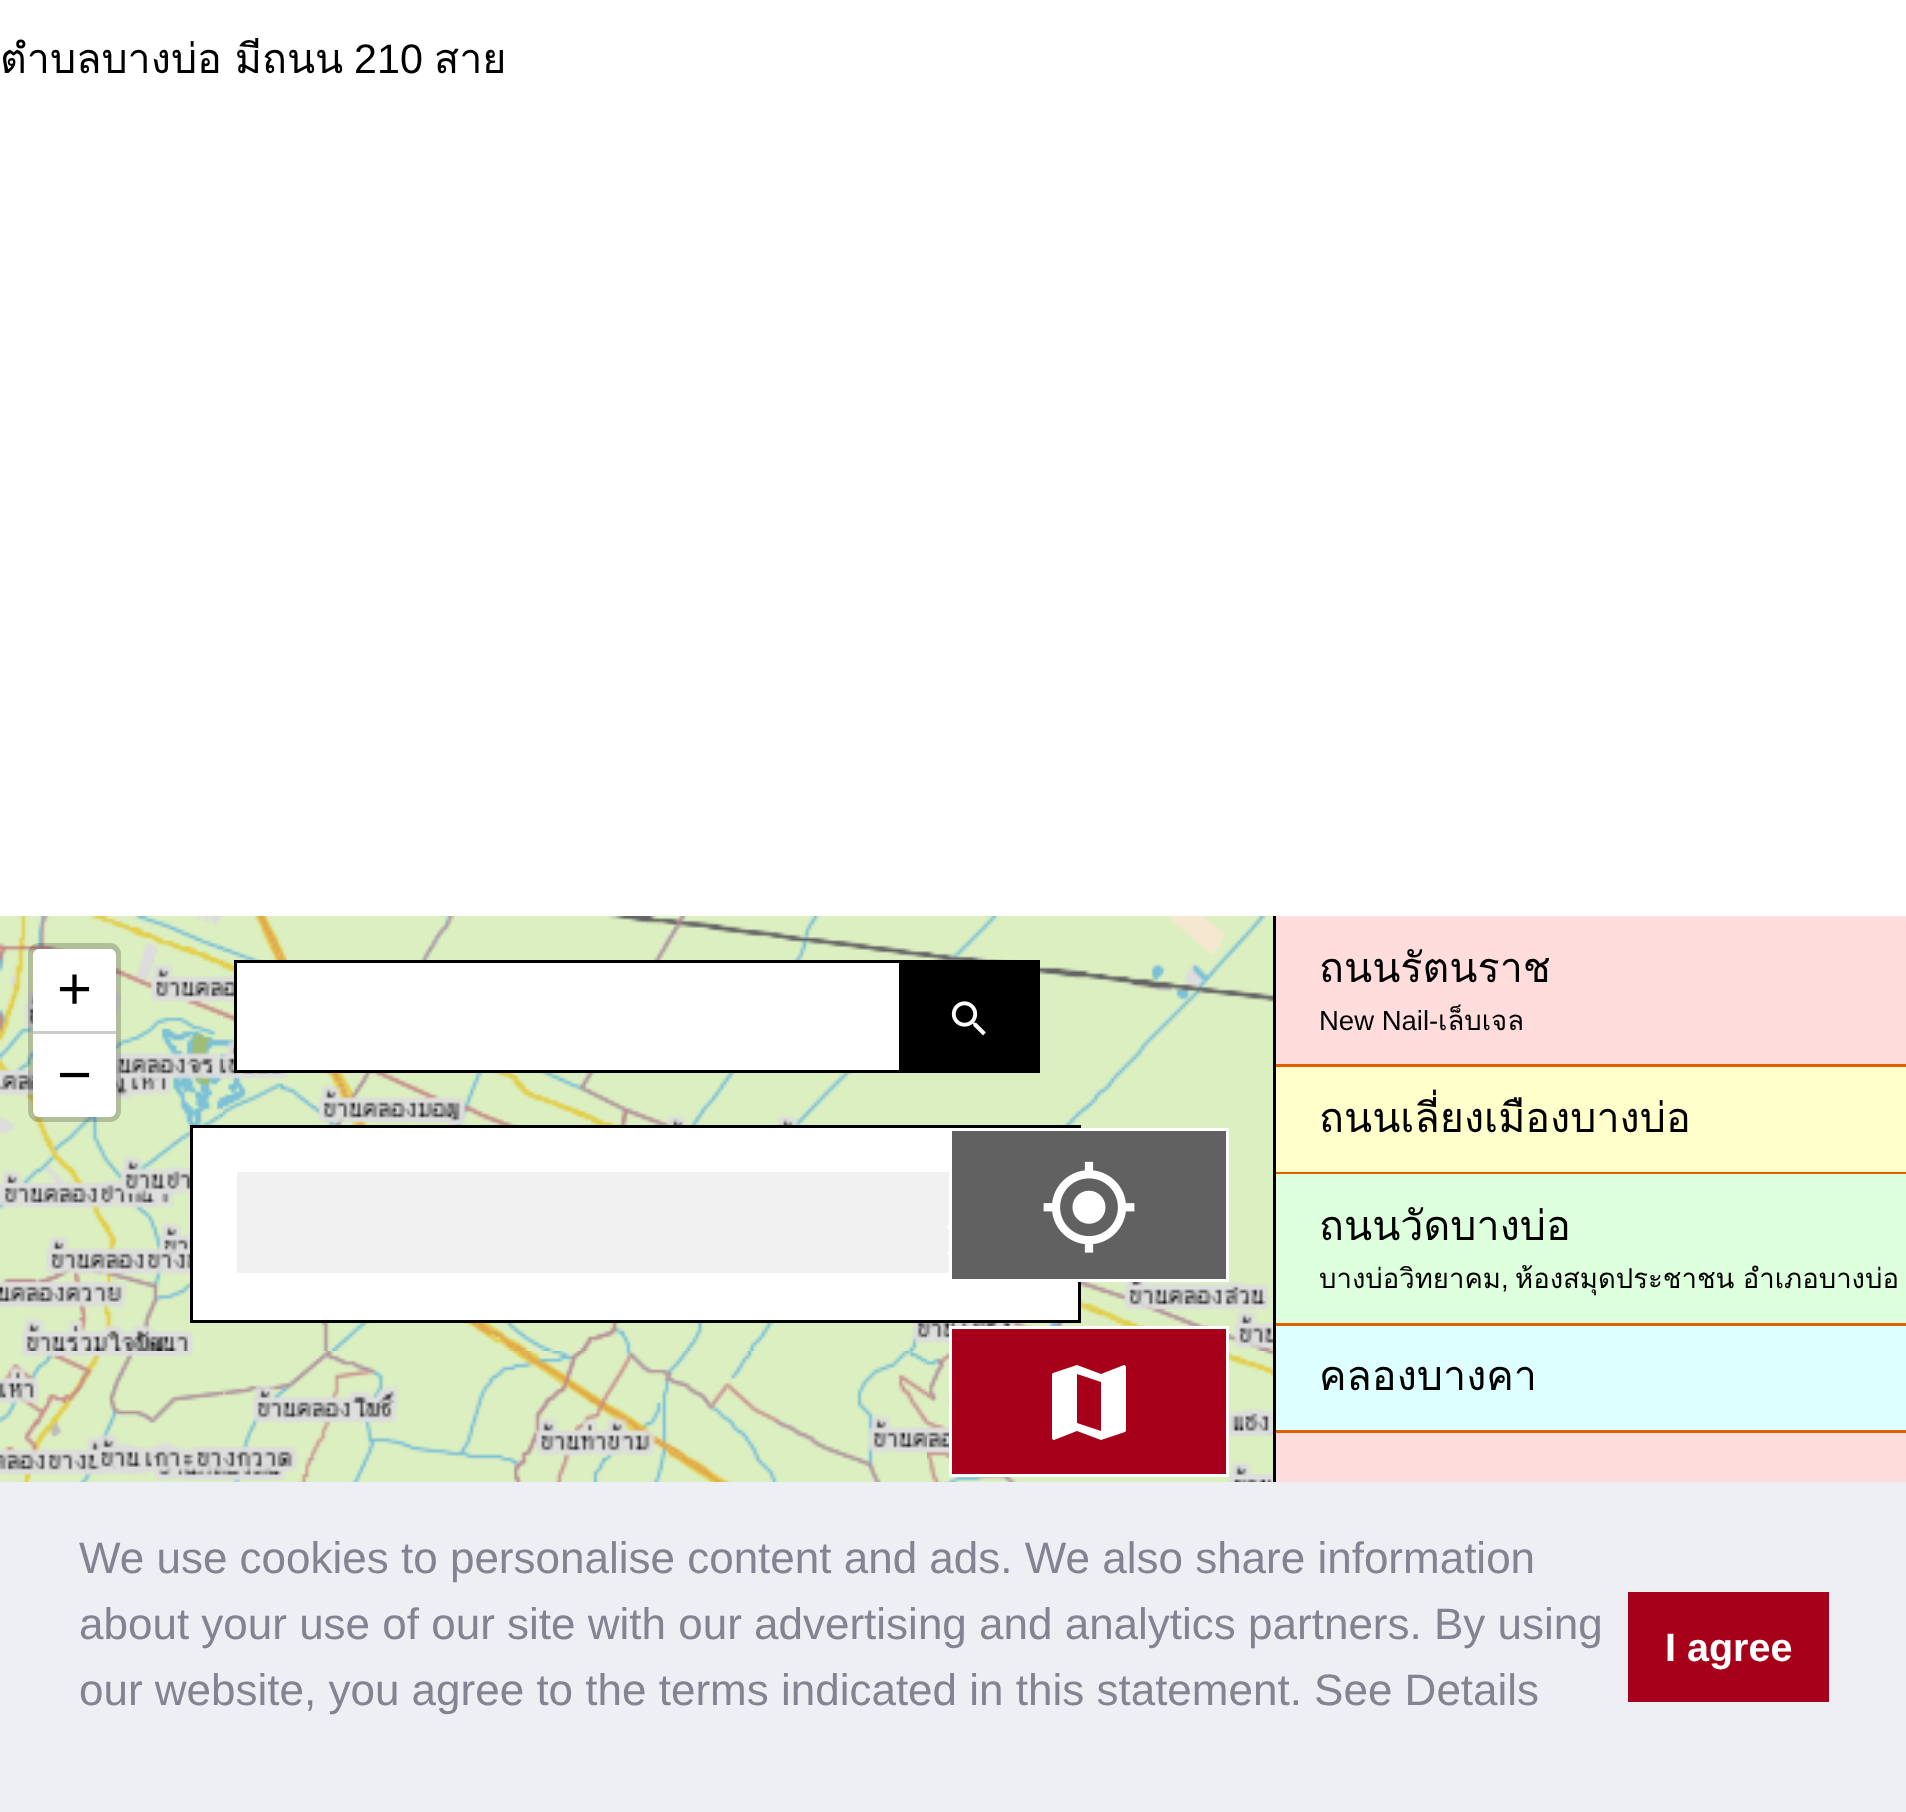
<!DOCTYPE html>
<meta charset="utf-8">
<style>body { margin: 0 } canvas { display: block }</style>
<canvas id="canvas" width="1906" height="1812"></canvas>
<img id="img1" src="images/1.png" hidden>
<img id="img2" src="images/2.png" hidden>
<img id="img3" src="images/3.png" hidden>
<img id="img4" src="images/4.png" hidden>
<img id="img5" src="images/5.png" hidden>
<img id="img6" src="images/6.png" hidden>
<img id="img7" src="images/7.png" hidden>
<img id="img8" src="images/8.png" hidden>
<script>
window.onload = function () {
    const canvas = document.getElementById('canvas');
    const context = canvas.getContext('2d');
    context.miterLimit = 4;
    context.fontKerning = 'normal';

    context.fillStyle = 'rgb(255, 255, 255)';
    context.fillRect(0, 0, 1906, 1812);
    context.drawImage(document.getElementById('img1'), 0, 916, 223, 435);
    context.drawImage(document.getElementById('img2'), 223, 916, 704, 435);
    context.drawImage(document.getElementById('img3'), 927, 916, 346, 435);
    context.drawImage(document.getElementById('img4'), 0, 1351, 223, 131);
    context.drawImage(document.getElementById('img5'), 223, 1351, 704, 131);
    context.drawImage(document.getElementById('img6'), 927, 1351, 346, 131);
    context.beginPath();
    context.roundRect(31, 946, 87, 173, 8);
    context.strokeStyle = 'rgba(0, 0, 0, 0.2)';
    context.lineWidth = 6;
    context.stroke();
    context.beginPath();
    context.roundRect(33, 949, 83, 85, [6, 6, 0, 0]);
    context.fill();
    context.fillStyle = 'rgb(204, 204, 204)';
    context.fillRect(33, 1031, 83, 3);
    context.fillStyle = 'rgb(255, 255, 255)';
    context.beginPath();
    context.roundRect(33, 1034, 83, 83, [0, 0, 6, 6]);
    context.fill();
    context.fillRect(237, 963, 662, 107);
    context.fillStyle = 'rgb(0, 0, 0)';
    context.fillRect(899, 960, 141, 113);
    context.save();
    context.beginPath();
    context.rect(234, 960, 665, 113);
    context.clip();
    context.strokeStyle = 'rgb(0, 0, 0)';
    context.lineWidth = 3;
    context.strokeRect(235.5, 961.5, 712, 110);
    context.restore();
    context.drawImage(document.getElementById('img7'), 951, 1001, 35, 35);
    context.fillStyle = 'rgb(255, 255, 255)';
    context.beginPath();
    context.rect(191.5, 1126.5, 888, 195);
    context.fill();
    context.strokeStyle = 'rgb(0, 0, 0)';
    context.lineWidth = 3;
    context.stroke();
    context.fillStyle = 'rgb(241, 241, 241)';
    context.fillRect(237, 1172, 712, 101);
    context.fillStyle = 'rgb(255, 255, 255)';
    context.beginPath();
    context.moveTo(978.5, 1227.5);
    context.lineTo(975.5, 1224);
    context.lineTo(962.5, 1237);
    context.lineTo(949.5, 1224);
    context.lineTo(946.5, 1227.5);
    context.lineTo(959.5, 1240);
    context.lineTo(946.5, 1253);
    context.lineTo(949.5, 1256.5);
    context.lineTo(962.5, 1243.5);
    context.lineTo(975.5, 1256.5);
    context.lineTo(978.5, 1253);
    context.lineTo(965.5, 1240);
    context.closePath();
    context.fill();
    context.fillStyle = 'rgb(97, 97, 97)';
    context.beginPath();
    context.rect(950.5, 1129.5, 277, 151);
    context.fill();
    context.strokeStyle = 'rgb(255, 255, 255)';
    context.stroke();
    context.drawImage(document.getElementById('img8'), 1043, 1161, 92, 92);
    context.fillStyle = 'rgb(166, 0, 26)';
    context.beginPath();
    context.rect(950.5, 1327.5, 277, 148);
    context.fill();
    context.stroke();
    context.fillStyle = 'rgb(255, 255, 255)';
    context.beginPath();
    context.moveTo(1124, 1365);
    context.lineTo(1101, 1374);
    context.lineTo(1077, 1365);
    context.lineTo(1053, 1373);
    context.bezierCurveTo(1052, 1374, 1052, 1374, 1052, 1375);
    context.lineTo(1052, 1438);
    context.bezierCurveTo(1052, 1439, 1053, 1440, 1054, 1440);
    context.lineTo(1077, 1431);
    context.lineTo(1101, 1440);
    context.lineTo(1125, 1432);
    context.bezierCurveTo(1126, 1431, 1126, 1431, 1126, 1430);
    context.lineTo(1126, 1367);
    context.bezierCurveTo(1126, 1366, 1125, 1365, 1124, 1365);
    context.closePath();
    context.moveTo(1101, 1431);
    context.lineTo(1077, 1423);
    context.lineTo(1077, 1374);
    context.lineTo(1101, 1382);
    context.closePath();
    context.fill();
    context.fillStyle = 'rgb(0, 0, 0)';
    context.fillRect(1273, 916, 3, 566);
    context.fillStyle = 'rgb(255, 221, 221)';
    context.fillRect(1276, 916, 630, 148);
    context.fillStyle = 'rgb(224, 96, 0)';
    context.fillRect(1276, 1064, 630, 3);
    context.fillStyle = 'rgb(255, 255, 204)';
    context.fillRect(1276, 1067, 630, 105);
    context.fillStyle = 'rgb(224, 96, 0)';
    context.fillRect(1276, 1172, 630, 2);
    context.fillStyle = 'rgb(221, 255, 221)';
    context.fillRect(1276, 1174, 630, 149);
    context.fillStyle = 'rgb(224, 96, 0)';
    context.fillRect(1276, 1323, 630, 3);
    context.fillStyle = 'rgb(221, 255, 255)';
    context.fillRect(1276, 1326, 630, 104);
    context.fillStyle = 'rgb(224, 96, 0)';
    context.fillRect(1276, 1430, 630, 3);
    context.fillStyle = 'rgb(255, 221, 221)';
    context.fillRect(1276, 1433, 630, 49);
    context.fillStyle = 'rgb(237, 239, 245)';
    context.fillRect(0, 1482, 1906, 330);
    context.fillStyle = 'rgb(166, 0, 26)';
    context.fillRect(1628, 1592, 201, 110);
    context.wordSpacing = '-1px';
    context.font = '41.25px Loma';
    context.fillStyle = 'rgb(0, 0, 0)';
    context.fillText('ตำบลบางบ่อ มีถนน', 0, 73);
    context.wordSpacing = '0px';
    context.font = '41.25px Liberation Sans';
    context.fillText('210', 354, 73);
    context.font = '41.25px Loma';
    context.fillText('สาย', 434, 73);
    context.font = '60px Liberation Sans';
    context.fillText('+', 57, 1009);
    context.fillText('−', 57, 1095);
    context.font = '41.25px Loma';
    context.fillText('ถนนรัตนราช', 1319, 982);
    context.font = '27.5px Liberation Sans';
    context.fillText('New Nail-', 1319, 1030);
    context.font = '27.5px Loma';
    context.fillText('เล็บเจล', 1438, 1030);
    context.font = '41.25px Loma';
    context.fillText('ถนนเลี่ยงเมืองบางบ่อ', 1319, 1132);
    context.fillText('ถนนวัดบางบ่อ', 1319, 1240);
    context.font = '27.5px Loma';
    context.fillText('บางบ่อวิทยาคม', 1319, 1288);
    context.font = '27.5px Liberation Sans';
    context.fillText(',', 1501, 1288);
    context.wordSpacing = '-1px';
    context.font = '27.5px Loma';
    context.fillText('ห้องสมุดประชาชน อำเภอบางบ่อ', 1515, 1288);
    context.wordSpacing = '0px';
    context.font = '41.25px Loma';
    context.fillText('คลองบางคา', 1319, 1390);
    context.font = '44px Liberation Sans';
    context.fillStyle = 'rgb(131, 131, 145)';
    context.fillText('We use cookies to personalise content and ads. We also share information', 79, 1573);
    context.fillText('about your use of our site with our advertising and analytics partners. By using', 79, 1639);
    context.fillText('our website, you agree to the terms indicated in this statement. See Details', 79, 1705);
    context.font = 'bold 39.5px Liberation Sans';
    context.fillStyle = 'rgb(255, 255, 255)';
    context.fillText('I agree', 1665, 1661);
};
</script>
